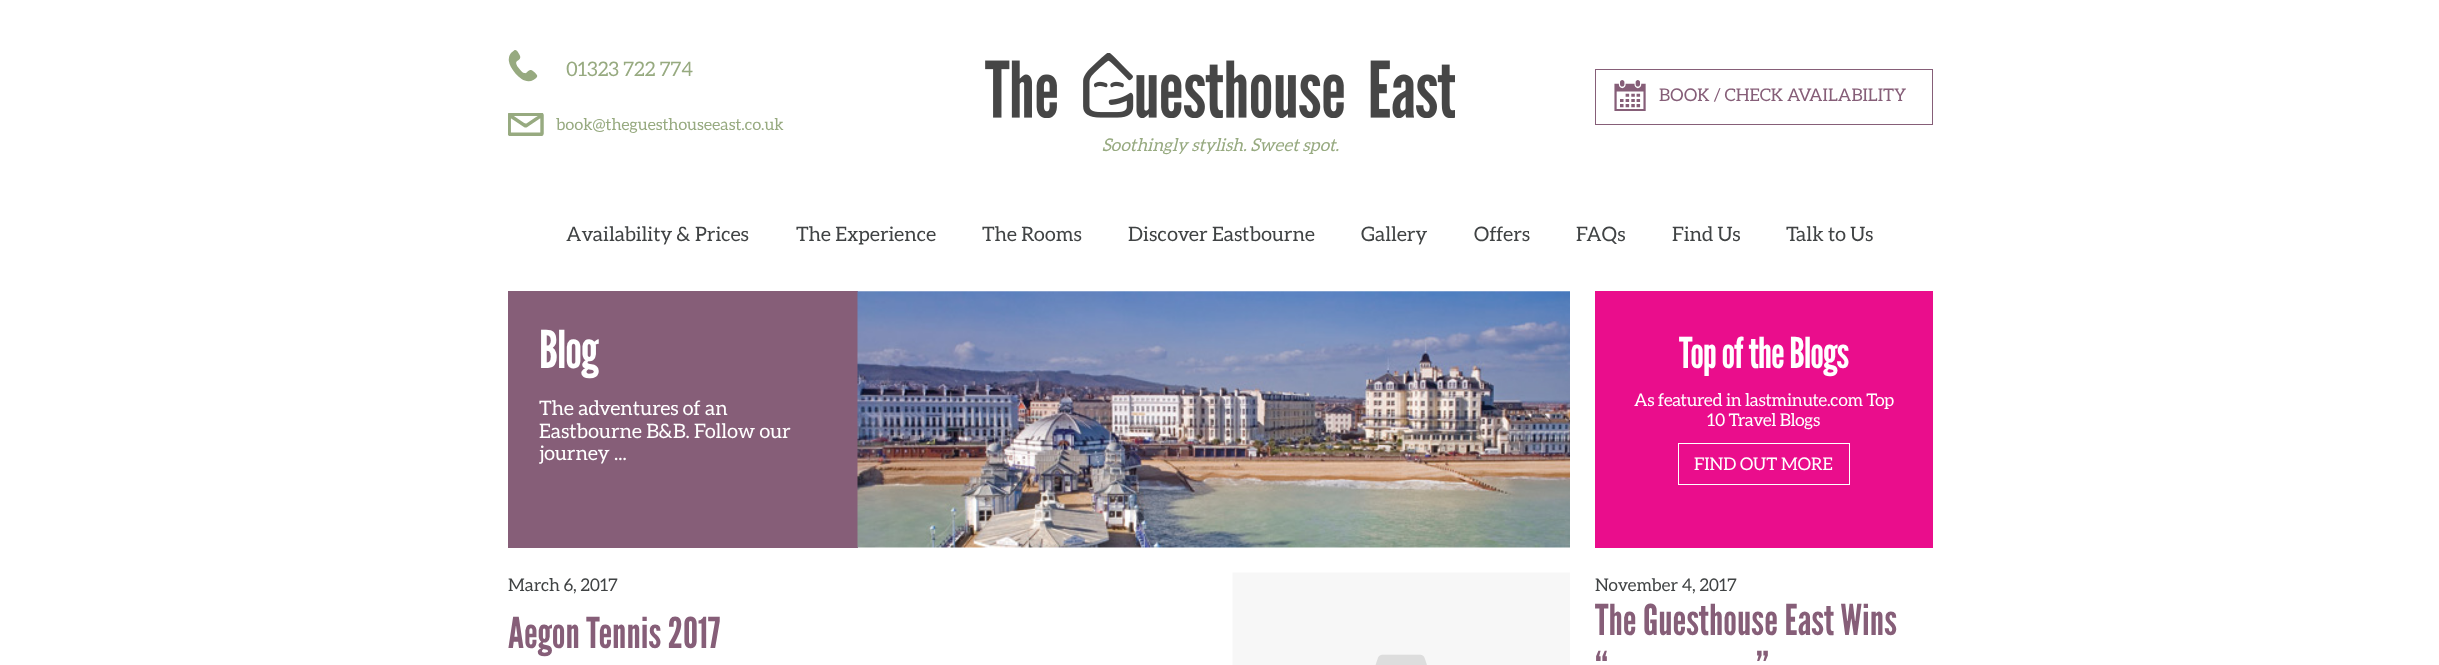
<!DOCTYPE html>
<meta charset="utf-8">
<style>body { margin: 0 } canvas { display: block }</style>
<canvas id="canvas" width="2439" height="665"></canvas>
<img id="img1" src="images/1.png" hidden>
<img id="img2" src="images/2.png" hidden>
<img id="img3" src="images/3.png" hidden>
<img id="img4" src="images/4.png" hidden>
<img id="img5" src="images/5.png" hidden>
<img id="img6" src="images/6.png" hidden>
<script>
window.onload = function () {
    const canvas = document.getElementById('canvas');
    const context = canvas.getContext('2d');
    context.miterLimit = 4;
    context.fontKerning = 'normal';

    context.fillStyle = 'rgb(255, 255, 255)';
    context.fillRect(0, 0, 2439, 665);
    context.drawImage(document.getElementById('img1'), 508, 50, 30, 32);
    context.drawImage(document.getElementById('img2'), 508, 113, 36, 23);
    context.strokeStyle = 'rgb(134, 94, 120)';
    context.strokeRect(1595.5, 69.5, 337, 55);
    context.drawImage(document.getElementById('img3'), 1614, 80, 32, 31);
    context.drawImage(document.getElementById('img4'), 985, 53, 470, 65);
    context.fillStyle = 'rgb(134, 94, 120)';
    context.fillRect(508, 291, 350, 257);
    context.drawImage(document.getElementById('img5'), 857, 291, 713, 257);
    context.fillStyle = 'rgb(234, 13, 140)';
    context.fillRect(1595, 291, 338, 257);
    context.strokeStyle = 'rgb(255, 255, 255)';
    context.strokeRect(1678.5, 443.5, 171, 41);
    context.drawImage(document.getElementById('img6'), 1232, 572, 338, 93);
    context.font = '20px Aleo';
    context.fillStyle = 'rgb(151, 170, 128)';
    context.fillText('01323 722 774', 566, 76);
    context.font = '16.25px Aleo';
    context.fillText('book@theguesthouseeast.co.uk', 556, 130);
    context.font = '17.5px Aleo';
    context.fillStyle = 'rgb(134, 94, 120)';
    context.fillText('BOOK / CHECK AVAILABILITY', 1659, 101);
    context.font = 'italic 17.5px Aleo';
    context.fillStyle = 'rgb(151, 170, 128)';
    context.fillText('Soothingly stylish. Sweet spot.', 1102, 151);
    context.font = '20px Aleo';
    context.fillStyle = 'rgb(64, 67, 68)';
    context.fillText('Availability & Prices', 566, 241);
    context.fillText('The Experience', 796, 241);
    context.fillText('The Rooms', 982, 241);
    context.fillText('Discover Eastbourne', 1128, 241);
    context.fillText('Gallery', 1361, 241);
    context.fillText('Offers', 1474, 241);
    context.fillText('FAQs', 1576, 241);
    context.fillText('Find Us', 1672, 241);
    context.fillText('Talk to Us', 1786, 241);
    context.letterSpacing = '-1px';
    context.font = '52px League Gothic';
    context.fillStyle = 'rgb(255, 255, 255)';
    context.fillText('Blog', 539, 368);
    context.letterSpacing = '0px';
    context.font = '20px Aleo';
    context.fillText('The adventures of an', 539, 415);
    context.fillText('Eastbourne B&B. Follow our', 539, 438);
    context.fillText('journey ...', 539, 460);
    context.letterSpacing = '-1px';
    context.font = '42.5px League Gothic';
    context.fillText('Top of the Blogs', 1679, 368);
    context.letterSpacing = '-0.25px';
    context.font = '17.5px Aleo';
    context.fillText('As featured in lastminute.com Top', 1634, 406);
    context.fillText('10 Travel Blogs', 1707, 426);
    context.letterSpacing = '0px';
    context.fillText('FIND OUT MORE', 1694, 470);
    context.fillStyle = 'rgb(64, 67, 68)';
    context.fillText('March 6, 2017', 508, 591);
    context.font = '42.5px League Gothic';
    context.fillStyle = 'rgb(134, 94, 120)';
    context.fillText('Aegon Tennis 2017', 508, 648);
    context.font = '17.5px Aleo';
    context.fillStyle = 'rgb(64, 67, 68)';
    context.fillText('November 4, 2017', 1595, 591);
    context.font = '42.5px League Gothic';
    context.fillStyle = 'rgb(134, 94, 120)';
    context.fillText('The Guesthouse East Wins', 1595, 635);
    context.fillText('“', 1595, 682);
    context.fillText('”', 1756, 682);
};
</script>
